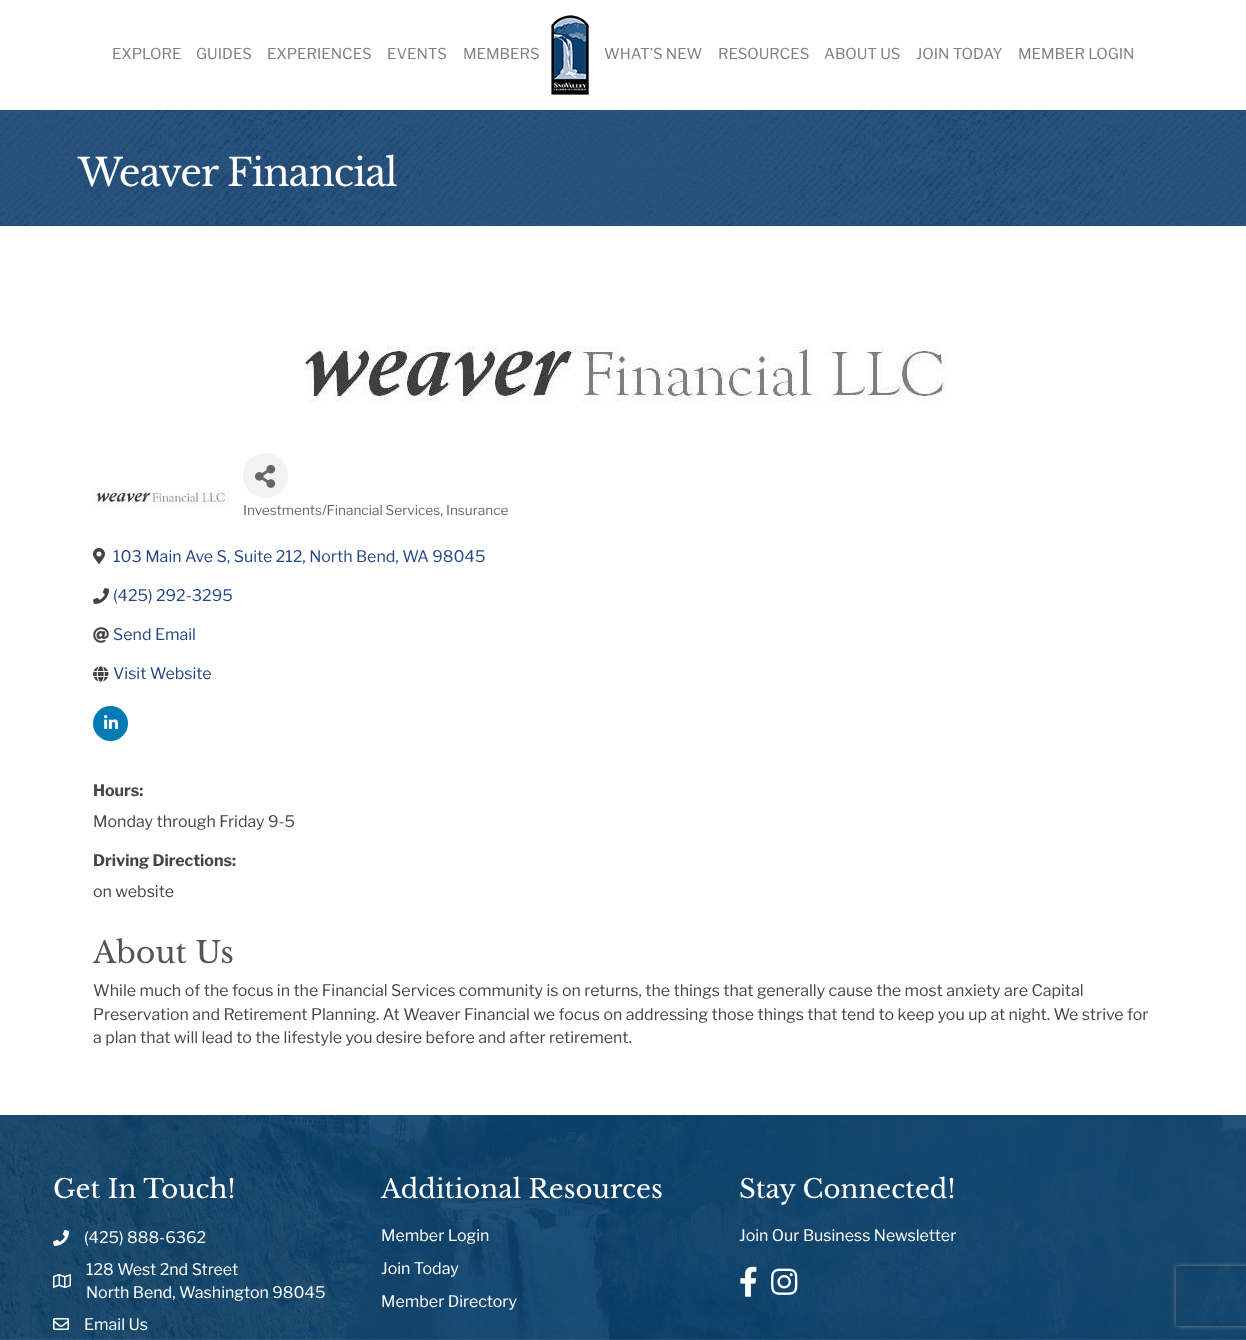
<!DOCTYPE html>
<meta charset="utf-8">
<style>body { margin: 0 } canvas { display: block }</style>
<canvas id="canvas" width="1246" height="1340"></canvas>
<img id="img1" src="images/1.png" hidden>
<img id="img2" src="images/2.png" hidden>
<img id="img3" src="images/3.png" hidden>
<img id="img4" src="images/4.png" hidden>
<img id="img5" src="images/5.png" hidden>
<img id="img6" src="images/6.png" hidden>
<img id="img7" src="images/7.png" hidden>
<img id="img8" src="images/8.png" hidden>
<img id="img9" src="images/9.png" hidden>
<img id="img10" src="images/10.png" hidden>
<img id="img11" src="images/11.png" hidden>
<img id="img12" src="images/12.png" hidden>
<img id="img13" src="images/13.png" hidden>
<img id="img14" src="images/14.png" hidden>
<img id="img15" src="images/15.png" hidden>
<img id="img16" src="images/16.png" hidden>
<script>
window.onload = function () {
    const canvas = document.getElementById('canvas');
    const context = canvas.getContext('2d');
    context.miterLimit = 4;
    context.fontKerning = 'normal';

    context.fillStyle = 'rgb(255, 255, 255)';
    context.fillRect(0, 0, 1246, 1340);
    context.drawImage(document.getElementById('img1'), 551, 15, 38, 80);
    context.drawImage(document.getElementById('img2'), 0, 110, 1246, 116);
    context.drawImage(document.getElementById('img3'), 304, 346, 642, 56);
    context.drawImage(document.getElementById('img4'), 93, 489, 135, 17);
    context.fillStyle = 'rgb(243, 243, 243)';
    context.beginPath();
    context.arc(265.5, 475.5, 22.5, 0, 2 * Math.PI);
    context.fill();
    context.drawImage(document.getElementById('img5'), 255, 464, 21, 24);
    context.drawImage(document.getElementById('img6'), 93, 548, 12, 16);
    context.drawImage(document.getElementById('img7'), 93, 588, 16, 16);
    context.drawImage(document.getElementById('img8'), 93, 627, 16, 16);
    context.drawImage(document.getElementById('img9'), 93, 666, 16, 16);
    context.fillStyle = 'rgb(0, 123, 181)';
    context.beginPath();
    context.arc(110.5, 723.5, 17.5, 0, 2 * Math.PI);
    context.fill();
    context.drawImage(document.getElementById('img10'), 104, 715, 14, 14);
    context.drawImage(document.getElementById('img11'), 0, 1115, 1246, 225);
    context.drawImage(document.getElementById('img12'), 53, 1230, 16, 16);
    context.drawImage(document.getElementById('img13'), 53, 1274, 18, 14);
    context.drawImage(document.getElementById('img14'), 53, 1318, 16, 12);
    context.drawImage(document.getElementById('img15'), 740, 1266, 17, 31);
    context.drawImage(document.getElementById('img16'), 771, 1268, 27, 27);
    context.save();
    context.beginPath();
    context.moveTo(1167, 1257);
    context.lineTo(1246, 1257);
    context.lineTo(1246, 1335);
    context.lineTo(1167, 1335);
    context.closePath();
    context.moveTo(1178, 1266);
    context.lineTo(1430, 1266);
    context.bezierCurveTo(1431, 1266, 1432, 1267, 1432, 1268);
    context.lineTo(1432, 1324);
    context.bezierCurveTo(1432, 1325, 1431, 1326, 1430, 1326);
    context.lineTo(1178, 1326);
    context.bezierCurveTo(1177, 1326, 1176, 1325, 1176, 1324);
    context.lineTo(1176, 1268);
    context.bezierCurveTo(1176, 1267, 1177, 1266, 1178, 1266);
    context.closePath();
    context.clip('evenodd');
    context.fillStyle = 'rgb(128, 128, 128)';
    context.filter = 'blur(2.5px)';
    context.beginPath();
    context.roundRect(1176, 1266, 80, 60, 2);
    context.fill();
    context.filter = 'none';
    context.restore();
    context.font = '15px Libre Franklin';
    context.fillStyle = 'rgb(128, 128, 128)';
    context.fillText('EXPLORE', 112, 59);
    context.fillText('GUIDES', 196, 59);
    context.fillText('EXPERIENCES', 267, 59);
    context.fillText('EVENTS', 387, 59);
    context.fillText('MEMBERS', 463, 59);
    context.fillText('WHAT’S NEW', 604, 59);
    context.fillText('RESOURCES', 718, 59);
    context.fillText('ABOUT US', 824, 59);
    context.fillText('JOIN TODAY', 916, 59);
    context.fillText('MEMBER LOGIN', 1018, 59);
    context.letterSpacing = '-1px';
    context.font = '38px Libre Baskerville';
    context.fillStyle = 'rgb(255, 255, 255)';
    context.fillText('Weaver Financial', 78, 186);
    context.letterSpacing = '0px';
    context.font = '13.6px Libre Franklin';
    context.fillStyle = 'rgb(105, 105, 105)';
    context.fillText('Investments/Financial Services, Insurance', 243, 515);
    context.font = '16px Libre Franklin';
    context.fillStyle = 'rgb(34, 72, 132)';
    context.fillText('103 Main Ave S, Suite 212, North Bend, WA 98045', 113, 562);
    context.fillText('(425) 292-3295', 113, 601);
    context.fillText('Send Email', 113, 640);
    context.fillText('Visit Website', 113, 679);
    context.font = 'bold 16px Libre Franklin';
    context.fillStyle = 'rgb(68, 68, 68)';
    context.fillText('Hours:', 93, 796);
    context.font = '16px Libre Franklin';
    context.fillText('Monday through Friday 9-5', 93, 827);
    context.font = 'bold 16px Libre Franklin';
    context.fillText('Driving Directions:', 93, 866);
    context.font = '16px Libre Franklin';
    context.fillText('on website', 93, 897);
    context.font = '30px Libre Baskerville';
    context.fillStyle = 'rgb(85, 85, 85)';
    context.fillText('About Us', 93, 963);
    context.font = '16px Libre Franklin';
    context.fillStyle = 'rgb(68, 68, 68)';
    context.fillText('While much of the focus in the Financial Services community is on returns, the things that generally cause the most anxiety are Capital', 93, 996);
    context.fillText('Preservation and Retirement Planning. At Weaver Financial we focus on addressing those things that tend to keep you up at night. We strive for', 93, 1020);
    context.fillText('a plan that will lead to the lifestyle you desire before and after retirement.', 93, 1043);
    context.font = '26px Libre Baskerville';
    context.fillStyle = 'rgb(255, 255, 255)';
    context.fillText('Get In Touch!', 53, 1198);
    context.font = '16px Libre Franklin';
    context.fillText('(425) 888-6362', 84, 1243);
    context.fillText('128 West 2nd Street', 86, 1275);
    context.fillText('North Bend, Washington 98045', 86, 1298);
    context.fillText('Email Us', 84, 1330);
    context.font = '26px Libre Baskerville';
    context.fillText('Additional Resources', 381, 1198);
    context.font = '16px Libre Franklin';
    context.fillText('Member Login', 381, 1241);
    context.fillText('Join Today', 381, 1274);
    context.fillText('Member Directory', 381, 1307);
    context.font = '26px Libre Baskerville';
    context.fillText('Stay Connected!', 739, 1198);
    context.font = '16px Libre Franklin';
    context.fillText('Join Our Business Newsletter', 739, 1241);
};
</script>
